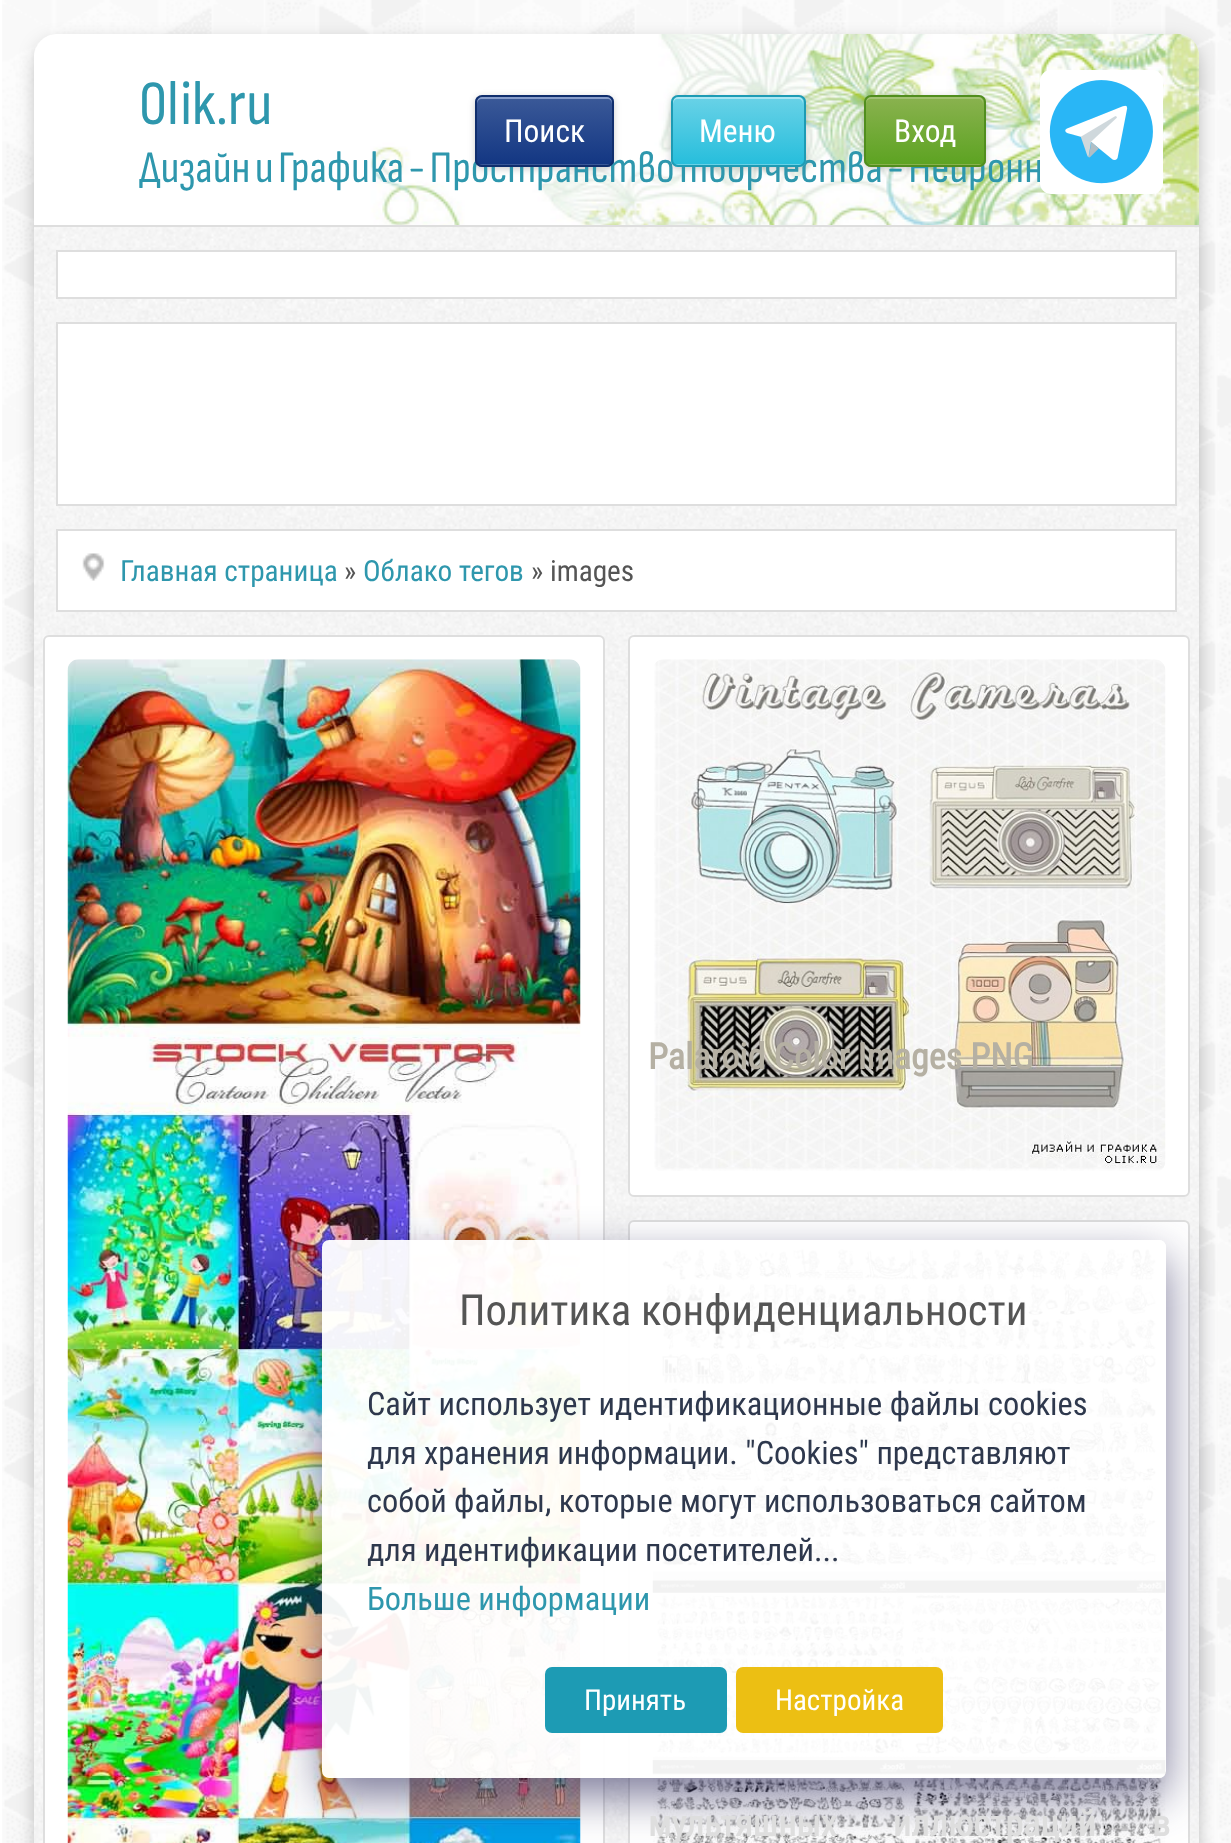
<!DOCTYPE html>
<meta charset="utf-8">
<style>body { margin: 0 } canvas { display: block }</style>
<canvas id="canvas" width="1231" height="1843"></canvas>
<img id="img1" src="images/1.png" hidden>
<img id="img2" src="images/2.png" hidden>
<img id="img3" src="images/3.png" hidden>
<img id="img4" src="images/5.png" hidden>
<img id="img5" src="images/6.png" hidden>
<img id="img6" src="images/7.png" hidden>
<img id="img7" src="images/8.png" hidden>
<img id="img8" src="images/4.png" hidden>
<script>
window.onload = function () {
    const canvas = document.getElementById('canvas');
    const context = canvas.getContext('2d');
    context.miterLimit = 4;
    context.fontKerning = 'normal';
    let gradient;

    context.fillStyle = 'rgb(255, 255, 255)';
    context.fillRect(0, 0, 1231, 1843);
    context.drawImage(document.getElementById('img1'), 2, 0, 1229, 1843);
    context.fillStyle = 'rgba(0, 0, 0, 0.43)';
    context.filter = 'blur(11px)';
    context.beginPath();
    context.roundRect(41, 47, 1152, 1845, 16);
    context.fill();
    context.filter = 'none';
    context.drawImage(document.getElementById('img2'), 34, 34, 1165, 1809);
    context.fillStyle = 'rgb(255, 255, 255)';
    context.beginPath();
    context.roundRect(34, 34, 1165, 193, [23, 23, 0, 0]);
    context.fill();
    context.drawImage(document.getElementById('img3'), 370, 33, 830, 195);
    context.fillStyle = 'rgb(222, 222, 222)';
    context.fillRect(34, 225, 1165, 2);
    context.fillStyle = 'rgba(0, 0, 0, 0.2)';
    context.filter = 'blur(3.5px)';
    context.beginPath();
    context.roundRect(475, 97, 139, 72, 7);
    context.fill();
    context.filter = 'none';
    context.filter = 'blur(3.5px)';
    context.beginPath();
    context.roundRect(671, 97, 135, 72, 7);
    context.fill();
    context.filter = 'none';
    context.filter = 'blur(3.5px)';
    context.beginPath();
    context.roundRect(864, 97, 122, 72, 7);
    context.fill();
    context.filter = 'none';
    context.fillStyle = 'rgb(255, 255, 255)';
    context.beginPath();
    context.rect(57, 251, 1119, 47);
    context.fill();
    context.strokeStyle = 'rgb(222, 222, 222)';
    context.lineWidth = 2;
    context.stroke();
    context.beginPath();
    context.rect(57, 323, 1119, 182);
    context.fill();
    context.stroke();
    context.beginPath();
    context.rect(57, 530, 1119, 81);
    context.fill();
    context.stroke();
    context.drawImage(document.getElementById('img4'), 82, 553, 23, 28);
    context.beginPath();
    context.roundRect(44, 636, 560, 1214, 5);
    context.fill();
    context.stroke();
    context.drawImage(document.getElementById('img5'), 67, 659, 514, 1184);
    context.beginPath();
    context.roundRect(629, 636, 560, 560, 5);
    context.fill();
    context.stroke();
    context.drawImage(document.getElementById('img6'), 654, 659, 512, 512);
    context.beginPath();
    context.roundRect(629, 1221, 560, 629, 5);
    context.fill();
    context.stroke();
    context.drawImage(document.getElementById('img7'), 652, 1244, 514, 599);
    context.save();
    context.beginPath();
    context.moveTo(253, 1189);
    context.lineTo(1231, 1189);
    context.lineTo(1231, 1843);
    context.lineTo(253, 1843);
    context.closePath();
    context.moveTo(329, 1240);
    context.lineTo(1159, 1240);
    context.bezierCurveTo(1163, 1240, 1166, 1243, 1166, 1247);
    context.lineTo(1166, 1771);
    context.bezierCurveTo(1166, 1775, 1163, 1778, 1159, 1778);
    context.lineTo(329, 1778);
    context.bezierCurveTo(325, 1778, 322, 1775, 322, 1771);
    context.lineTo(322, 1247);
    context.bezierCurveTo(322, 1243, 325, 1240, 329, 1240);
    context.closePath();
    context.clip('evenodd');
    context.fillStyle = 'rgba(40, 37, 89, 0.6)';
    context.filter = 'blur(22.5px)';
    context.beginPath();
    context.roundRect(322, 1258, 844, 538, 7);
    context.fill();
    context.filter = 'none';
    context.restore();
    context.fillStyle = 'rgba(255, 255, 255, 0.95)';
    context.beginPath();
    context.roundRect(322, 1240, 844, 538, 7);
    context.fill();
    context.fillStyle = 'rgb(29, 155, 180)';
    context.beginPath();
    context.roundRect(545, 1667, 182, 66, 7);
    context.fill();
    context.fillStyle = 'rgb(236, 191, 19)';
    context.beginPath();
    context.roundRect(736, 1667, 207, 66, 7);
    context.fill();
    context.font = '63px Sofia Sans Condensed';
    context.fillStyle = 'rgb(46, 151, 173)';
    context.fillText('0lik.ru', 139, 124);
    context.wordSpacing = '-2.75px';
    context.font = '45px Sofia Sans Condensed';
    context.fillText('Дизайн и Графика - Пространство творчества - Нейронн', 139, 182);
    context.fillStyle = 'rgb(255, 255, 255)';
    context.beginPath();
    context.roundRect(1040, 70, 123, 124, 11);
    context.fill();
    context.drawImage(document.getElementById('img8'), 1049, 80, 104, 104);
    context.save();
    context.beginPath();
    context.roundRect(475, 95, 139, 72, 7);
    context.clip();
    gradient = context.createLinearGradient(477, 164, 477, 97);
    gradient.addColorStop(0, 'rgb(19, 55, 131)');
    gradient.addColorStop(1, 'rgb(59, 89, 152)');
    context.fillStyle = gradient;
    context.fillRect(475, 97, 139, 67);
    gradient = context.createLinearGradient(477, 232, 477, 164);
    gradient.addColorStop(0, 'rgb(19, 55, 131)');
    gradient.addColorStop(1, 'rgb(59, 89, 152)');
    context.fillStyle = gradient;
    context.fillRect(475, 164, 139, 3);
    context.restore();
    context.fillStyle = 'rgb(134, 156, 202)';
    context.beginPath();
    context.moveTo(482, 99);
    context.lineTo(608, 99);
    context.bezierCurveTo(610, 99, 612, 101, 612, 104);
    context.lineTo(612, 102);
    context.bezierCurveTo(612, 99, 610, 97, 607, 97);
    context.lineTo(482, 97);
    context.bezierCurveTo(479, 97, 477, 99, 477, 102);
    context.lineTo(477, 104);
    context.bezierCurveTo(477, 101, 479, 99, 482, 99);
    context.closePath();
    context.fill();
    context.beginPath();
    context.roundRect(476, 96, 137, 70, 6);
    context.strokeStyle = 'rgb(16, 46, 109)';
    context.stroke();
    context.wordSpacing = '0px';
    context.font = '31.5px Roboto Condensed';
    context.fillStyle = 'rgb(255, 255, 255)';
    context.fillText('Поиск', 504, 142);
    context.save();
    context.beginPath();
    context.roundRect(671, 95, 135, 72, 7);
    context.clip();
    gradient = context.createLinearGradient(673, 164, 673, 97);
    gradient.addColorStop(0, 'rgb(39, 190, 220)');
    gradient.addColorStop(1, 'rgb(105, 210, 231)');
    context.fillStyle = gradient;
    context.fillRect(671, 97, 135, 67);
    gradient = context.createLinearGradient(673, 232, 673, 164);
    gradient.addColorStop(0, 'rgb(39, 190, 220)');
    gradient.addColorStop(1, 'rgb(105, 210, 231)');
    context.fillStyle = gradient;
    context.fillRect(671, 164, 135, 3);
    context.restore();
    context.fillStyle = 'rgb(171, 230, 242)';
    context.beginPath();
    context.moveTo(677, 99);
    context.lineTo(799, 99);
    context.bezierCurveTo(801, 99, 803, 101, 803, 104);
    context.lineTo(803, 102);
    context.bezierCurveTo(803, 99, 801, 97, 798, 97);
    context.lineTo(678, 97);
    context.bezierCurveTo(675, 97, 673, 99, 673, 102);
    context.lineTo(673, 104);
    context.bezierCurveTo(673, 101, 675, 99, 677, 99);
    context.closePath();
    context.fill();
    context.beginPath();
    context.roundRect(672, 96, 133, 70, 6);
    context.strokeStyle = 'rgb(29, 155, 180)';
    context.stroke();
    context.fillStyle = 'rgb(255, 255, 255)';
    context.fillText('Меню', 699, 142);
    context.save();
    context.beginPath();
    context.roundRect(864, 95, 122, 72, 7);
    context.clip();
    gradient = context.createLinearGradient(866, 164, 866, 97);
    gradient.addColorStop(0, 'rgb(93, 163, 34)');
    gradient.addColorStop(1, 'rgb(138, 178, 79)');
    context.fillStyle = gradient;
    context.fillRect(864, 97, 122, 67);
    gradient = context.createLinearGradient(866, 232, 866, 164);
    gradient.addColorStop(0, 'rgb(93, 163, 34)');
    gradient.addColorStop(1, 'rgb(138, 178, 79)');
    context.fillStyle = gradient;
    context.fillRect(864, 164, 122, 3);
    context.restore();
    context.fillStyle = 'rgb(162, 194, 114)';
    context.beginPath();
    context.moveTo(871, 99);
    context.lineTo(979, 99);
    context.bezierCurveTo(981, 99, 983, 101, 983, 104);
    context.lineTo(983, 102);
    context.bezierCurveTo(983, 99, 981, 97, 978, 97);
    context.lineTo(871, 97);
    context.bezierCurveTo(868, 97, 866, 99, 866, 102);
    context.lineTo(866, 104);
    context.bezierCurveTo(866, 101, 868, 99, 871, 99);
    context.closePath();
    context.fill();
    context.beginPath();
    context.roundRect(865, 96, 120, 70, 6);
    context.strokeStyle = 'rgb(81, 142, 30)';
    context.stroke();
    context.fillStyle = 'rgb(255, 255, 255)';
    context.fillText('Вход', 894, 142);
    context.font = '29.25px Roboto Condensed';
    context.fillStyle = 'rgb(46, 151, 173)';
    context.fillText('Главная страница', 120, 581);
    context.fillStyle = 'rgb(85, 85, 85)';
    context.fillText('»', 344, 581);
    context.fillStyle = 'rgb(46, 151, 173)';
    context.fillText('Облако тегов', 363, 581);
    context.fillStyle = 'rgb(85, 85, 85)';
    context.fillText('» images', 531, 581);
    context.font = 'bold 36px Roboto Condensed';
    context.fillStyle = 'rgb(181, 176, 163)';
    context.fillText('Palaroid Color Images PNG', 648, 1069);
    context.wordSpacing = '48px';
    context.fillStyle = 'rgb(222, 222, 222)';
    context.fillText('мультяшных иллюстраций в', 648, 1836);
    context.wordSpacing = '0px';
    context.font = '42.75px Roboto Condensed';
    context.fillStyle = 'rgb(85, 85, 85)';
    context.fillText('Политика конфиденциальности', 459, 1325);
    context.font = '32.4px Roboto Condensed';
    context.fillStyle = 'rgb(46, 56, 77)';
    context.fillText('Сайт использует идентификационные файлы cookies', 367, 1415);
    context.fillText('для хранения информации. "Cookies" представляют', 367, 1464);
    context.fillText('собой файлы, которые могут использоваться сайтом', 367, 1512);
    context.fillText('для идентификации посетителей...', 367, 1561);
    context.fillStyle = 'rgb(46, 151, 173)';
    context.fillText('Больше информации', 367, 1610);
    context.font = '29px Roboto Condensed';
    context.fillStyle = 'rgb(255, 255, 255)';
    context.fillText('Принять', 584, 1710);
    context.fillText('Настройка', 775, 1710);
};
</script>
